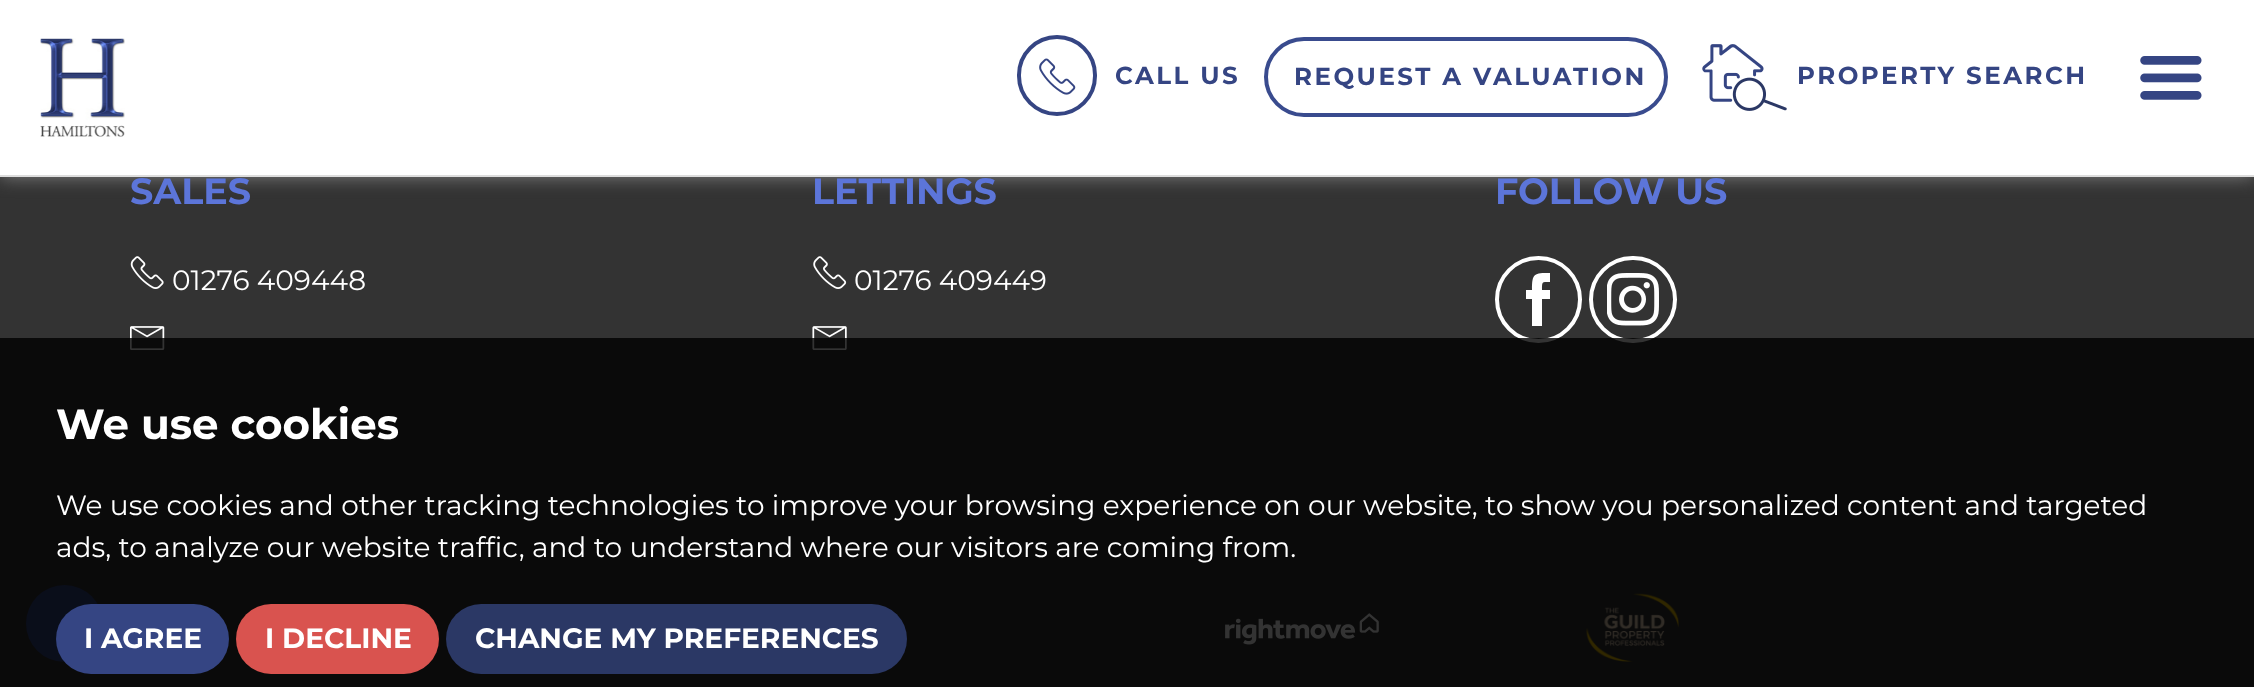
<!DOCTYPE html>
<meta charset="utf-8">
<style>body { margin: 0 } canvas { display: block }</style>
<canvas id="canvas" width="2254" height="687"></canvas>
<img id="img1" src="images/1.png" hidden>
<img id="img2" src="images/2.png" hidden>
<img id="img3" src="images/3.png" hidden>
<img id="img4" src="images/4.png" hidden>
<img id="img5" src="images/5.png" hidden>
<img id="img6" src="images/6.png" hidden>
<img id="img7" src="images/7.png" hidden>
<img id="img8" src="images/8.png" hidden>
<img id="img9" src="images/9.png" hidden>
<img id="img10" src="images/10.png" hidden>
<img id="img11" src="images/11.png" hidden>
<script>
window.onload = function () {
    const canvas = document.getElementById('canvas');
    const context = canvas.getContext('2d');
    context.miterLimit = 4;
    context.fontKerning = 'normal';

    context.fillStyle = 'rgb(51, 51, 51)';
    context.fillRect(0, 0, 2254, 687);
    context.fillStyle = 'rgb(128, 128, 128)';
    context.filter = 'blur(9px)';
    context.beginPath();
    context.rect(0, 0, 2254, 177);
    context.fill();
    context.filter = 'none';
    context.fillStyle = 'rgb(255, 255, 255)';
    context.fillRect(0, 0, 2254, 175);
    context.fillStyle = 'rgb(221, 221, 221)';
    context.fillRect(0, 175, 2254, 2);
    context.drawImage(document.getElementById('img1'), 40, 38, 85, 99);
    context.beginPath();
    context.roundRect(1019, 37, 76, 77, 38);
    context.strokeStyle = 'rgb(53, 69, 131)';
    context.lineWidth = 4;
    context.stroke();
    context.drawImage(document.getElementById('img2'), 1039, 58, 37, 37);
    context.beginPath();
    context.roundRect(1266, 39, 400, 76, 38);
    context.strokeStyle = 'rgb(57, 75, 142)';
    context.stroke();
    context.drawImage(document.getElementById('img3'), 1702, 44, 85, 67);
    context.drawImage(document.getElementById('img4'), 2140, 56, 62, 44);
    context.drawImage(document.getElementById('img5'), 130, 256, 34, 33);
    context.drawImage(document.getElementById('img6'), 130, 326, 35, 24);
    context.drawImage(document.getElementById('img7'), 813, 256, 34, 33);
    context.drawImage(document.getElementById('img8'), 812, 326, 35, 24);
    context.beginPath();
    context.arc(1538.5, 299.5, 41.5, 0, 2 * Math.PI);
    context.strokeStyle = 'rgb(255, 255, 255)';
    context.stroke();
    context.fillStyle = 'rgb(255, 255, 255)';
    context.beginPath();
    context.moveTo(1532, 290);
    context.lineTo(1526, 290);
    context.lineTo(1526, 299);
    context.lineTo(1532, 299);
    context.lineTo(1532, 326);
    context.lineTo(1542, 326);
    context.lineTo(1542, 299);
    context.lineTo(1550, 299);
    context.lineTo(1550, 290);
    context.lineTo(1542, 290);
    context.bezierCurveTo(1542, 281, 1542, 282, 1550, 282);
    context.lineTo(1550, 273);
    context.bezierCurveTo(1534, 273, 1532, 273, 1532, 290);
    context.closePath();
    context.fill();
    context.beginPath();
    context.roundRect(1591, 258, 84, 83, 41.5);
    context.stroke();
    context.drawImage(document.getElementById('img9'), 1607, 273, 52, 53);
    context.fillStyle = 'rgb(53, 69, 131)';
    context.beginPath();
    context.arc(64.5, 623.5, 38.5, 0, 2 * Math.PI);
    context.fill();
    context.drawImage(document.getElementById('img10'), 1225, 613, 154, 32);
    context.drawImage(document.getElementById('img11'), 1586, 593, 93, 69);
    context.fillStyle = 'rgba(0, 0, 0, 0.8)';
    context.fillRect(0, 338, 2254, 349);
    context.fillStyle = 'rgb(53, 69, 131)';
    context.beginPath();
    context.roundRect(56, 604, 173, 70, 35);
    context.fill();
    context.fillStyle = 'rgb(217, 83, 79)';
    context.beginPath();
    context.roundRect(236, 604, 203, 70, 35);
    context.fill();
    context.fillStyle = 'rgb(43, 56, 101)';
    context.beginPath();
    context.roundRect(446, 604, 461, 70, 35);
    context.fill();
    context.letterSpacing = '2.5px';
    context.font = 'bold 24.5px Montserrat';
    context.fillStyle = 'rgb(53, 69, 131)';
    context.fillText('CALL US', 1115, 84);
    context.fillText('REQUEST A VALUATION', 1294, 85);
    context.fillText('PROPERTY SEARCH', 1797, 84);
    context.letterSpacing = '0px';
    context.font = 'bold 36.5px Montserrat';
    context.fillStyle = 'rgb(92, 117, 217)';
    context.fillText('SALES', 130, 204);
    context.font = '28px Montserrat';
    context.fillStyle = 'rgb(255, 255, 255)';
    context.fillText('01276 409448', 172, 290);
    context.font = 'bold 36.5px Montserrat';
    context.fillStyle = 'rgb(92, 117, 217)';
    context.fillText('LETTINGS', 812, 204);
    context.font = '28px Montserrat';
    context.fillStyle = 'rgb(255, 255, 255)';
    context.fillText('01276 409449', 854, 290);
    context.font = 'bold 36.5px Montserrat';
    context.fillStyle = 'rgb(92, 117, 217)';
    context.fillText('FOLLOW US', 1495, 204);
    context.font = 'bold 42px Montserrat';
    context.fillStyle = 'rgb(255, 255, 255)';
    context.fillText('We use cookies', 56, 439);
    context.font = '28px Montserrat';
    context.fillText('We use cookies and other tracking technologies to improve your browsing experience on our website, to show you personalized content and targeted', 56, 515);
    context.fillText('ads, to analyze our website traffic, and to understand where our visitors are coming from.', 56, 557);
    context.font = 'bold 28px Montserrat';
    context.fillText('I AGREE', 84, 648);
    context.fillText('I DECLINE', 265, 648);
    context.fillText('CHANGE MY PREFERENCES', 475, 648);
};
</script>
